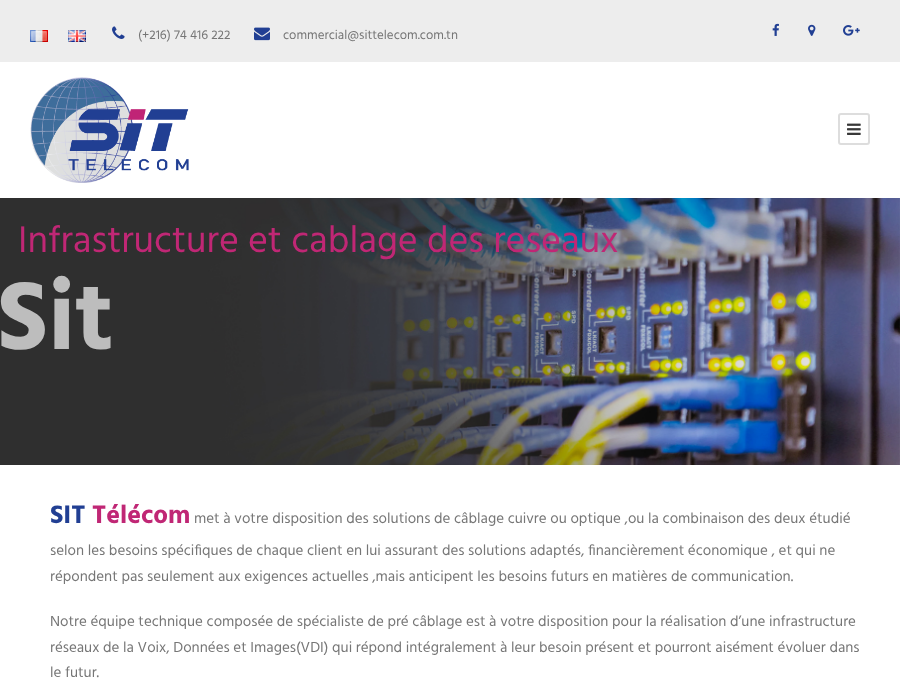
<!DOCTYPE html>
<meta charset="utf-8">
<style>body { margin: 0 } canvas { display: block }</style>
<canvas id="canvas" width="900" height="679"></canvas>
<img id="img1" src="images/1.png" hidden>
<img id="img2" src="images/2.png" hidden>
<img id="img3" src="images/3.png" hidden>
<img id="img4" src="images/4.png" hidden>
<img id="img5" src="images/5.png" hidden>
<img id="img6" src="images/6.png" hidden>
<img id="img7" src="images/7.png" hidden>
<img id="img8" src="images/8.png" hidden>
<img id="img9" src="images/9.png" hidden>
<img id="img10" src="images/10.png" hidden>
<script>
window.onload = function () {
    const canvas = document.getElementById('canvas');
    const context = canvas.getContext('2d');
    context.miterLimit = 4;
    context.fontKerning = 'normal';

    context.fillStyle = 'rgb(255, 255, 255)';
    context.fillRect(0, 0, 900, 679);
    context.fillStyle = 'rgb(237, 237, 237)';
    context.fillRect(0, 0, 900, 62);
    context.drawImage(document.getElementById('img1'), 30, 30, 18, 12);
    context.drawImage(document.getElementById('img2'), 68, 30, 18, 12);
    context.drawImage(document.getElementById('img3'), 112, 26, 13, 13);
    context.drawImage(document.getElementById('img4'), 254, 27, 16, 14);
    context.drawImage(document.getElementById('img5'), 772, 23, 7, 13);
    context.drawImage(document.getElementById('img6'), 808, 24, 8, 12);
    context.drawImage(document.getElementById('img7'), 843, 25, 17, 11);
    context.drawImage(document.getElementById('img8'), 30, 77, 159, 106);
    context.beginPath();
    context.roundRect(839, 114, 30, 30, 2);
    context.strokeStyle = 'rgb(221, 221, 221)';
    context.lineWidth = 2;
    context.stroke();
    context.drawImage(document.getElementById('img9'), 847, 123, 14, 12);
    context.drawImage(document.getElementById('img10'), 0, 198, 900, 267);
    context.font = '13px Hind';
    context.fillStyle = 'rgb(118, 118, 118)';
    context.fillText('(+216) 74 416 222', 138, 39);
    context.fillText('commercial@sittelecom.com.tn', 283, 39);
    context.font = '38px Hind';
    context.fillStyle = 'rgb(192, 39, 117)';
    context.fillText('Infrastructure et cablage des reseaux', 18, 252);
    context.font = 'bold 99px Hind';
    context.fillStyle = 'rgb(189, 189, 189)';
    context.fillText('Sit', -3, 349);
    context.font = 'bold 26px Hind';
    context.fillStyle = 'rgb(33, 63, 147)';
    context.fillText('SIT', 50, 523);
    context.fillStyle = 'rgb(192, 39, 117)';
    context.fillText('Télécom', 92, 523);
    context.font = '15px Hind';
    context.fillStyle = 'rgb(118, 118, 118)';
    context.fillText('met à votre disposition des solutions de câblage cuivre ou optique ,ou la combinaison des deux étudié', 194, 523);
    context.fillText('selon les besoins spécifiques de chaque client en lui assurant des solutions adaptés, financièrement économique , et qui ne', 50, 555);
    context.fillText('répondent pas seulement aux exigences actuelles ,mais anticipent les besoins futurs en matières de communication.', 50, 581);
    context.fillText('Notre équipe technique composée de spécialiste de pré câblage est à votre disposition pour la réalisation d’une infrastructure', 50, 626);
    context.fillText('réseaux de la Voix, Données et Images(VDI) qui répond intégralement à leur besoin présent et pourront aisément évoluer dans', 50, 652);
    context.fillText('le futur.', 50, 677);
};
</script>
